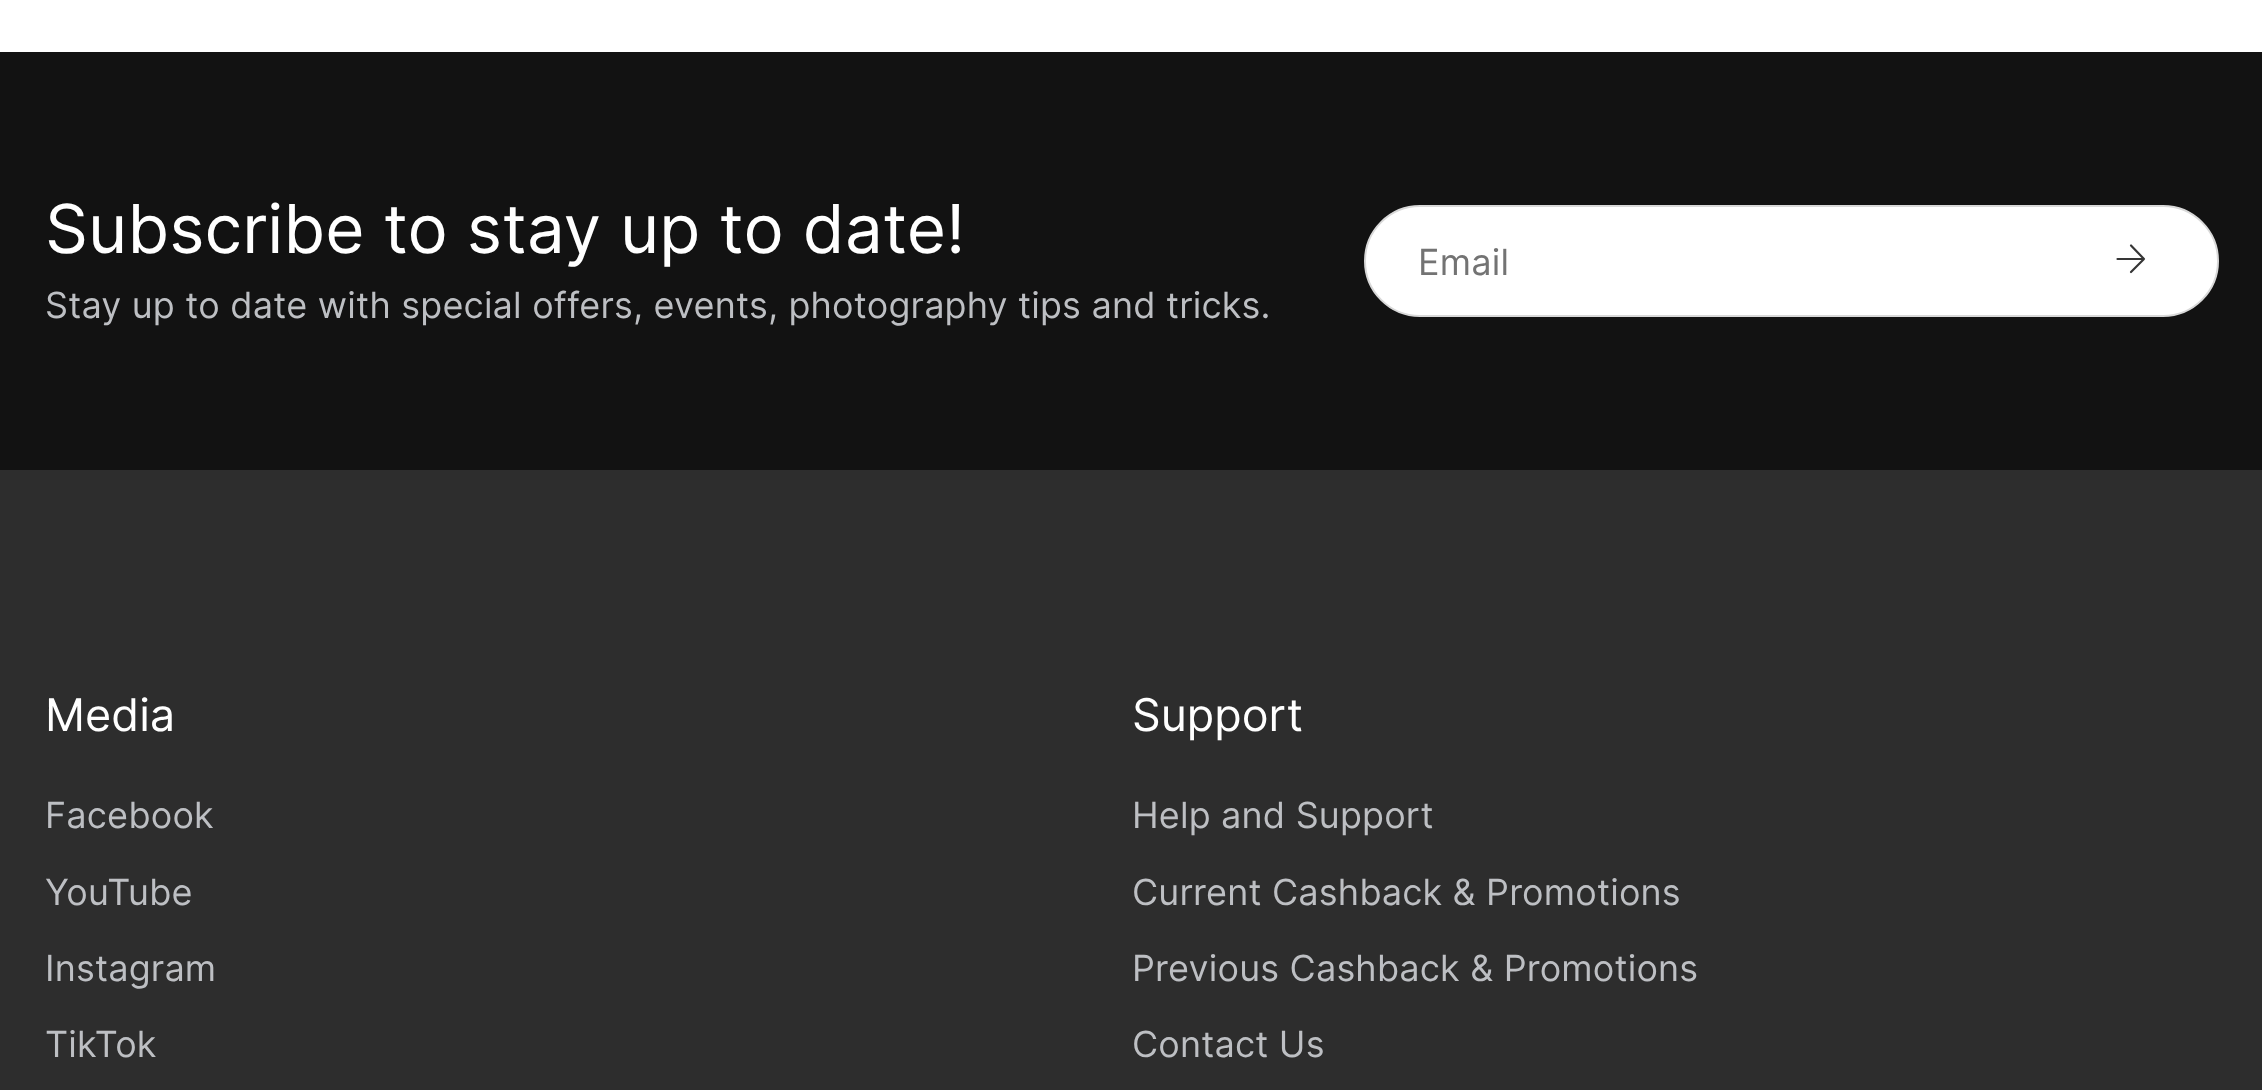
<!DOCTYPE html>
<meta charset="utf-8">
<style>body { margin: 0 } canvas { display: block }</style>
<canvas id="canvas" width="2262" height="1090"></canvas>
<script>
window.onload = function () {
    const canvas = document.getElementById('canvas');
    const context = canvas.getContext('2d');
    context.miterLimit = 4;
    context.fontKerning = 'normal';

    context.fillStyle = 'rgb(255, 255, 255)';
    context.fillRect(0, 0, 2262, 1090);
    context.fillStyle = 'rgb(18, 18, 18)';
    context.fillRect(0, 52, 2262, 418);
    context.fillStyle = 'rgb(255, 255, 255)';
    context.beginPath();
    context.roundRect(1365, 206, 853, 110, 55);
    context.fill();
    context.strokeStyle = 'rgb(217, 217, 217)';
    context.lineWidth = 2;
    context.stroke();
    context.beginPath();
    context.moveTo(2117.5, 259);
    context.lineTo(2144, 259);
    context.moveTo(2131, 245.5);
    context.lineTo(2144, 259);
    context.lineTo(2131, 272);
    context.strokeStyle = 'rgb(54, 54, 54)';
    context.lineWidth = 2.2;
    context.lineCap = 'round';
    context.lineJoin = 'round';
    context.stroke();
    context.fillStyle = 'rgb(45, 45, 45)';
    context.fillRect(0, 470, 2262, 620);
    context.font = '67.5px Inter';
    context.fillStyle = 'rgb(255, 255, 255)';
    context.fillText('Subscribe to stay up to date!', 45, 253);
    context.letterSpacing = '0.18px';
    context.font = '36px Inter';
    context.fillStyle = 'rgb(189, 191, 195)';
    context.fillText('Stay up to date with special offers, events, photography tips and tricks.', 45, 318);
    context.fillStyle = 'rgb(115, 115, 115)';
    context.fillText('Email', 1418, 275);
    context.letterSpacing = '0px';
    context.font = '45px Inter';
    context.fillStyle = 'rgb(255, 255, 255)';
    context.fillText('Media', 45, 731);
    context.letterSpacing = '0.18px';
    context.font = '36px Inter';
    context.fillStyle = 'rgb(189, 191, 195)';
    context.fillText('Facebook', 45, 828);
    context.fillText('YouTube', 45, 905);
    context.fillText('Instagram', 45, 981);
    context.fillText('TikTok', 45, 1057);
    context.letterSpacing = '0px';
    context.font = '45px Inter';
    context.fillStyle = 'rgb(255, 255, 255)';
    context.fillText('Support', 1132, 731);
    context.letterSpacing = '0.18px';
    context.font = '36px Inter';
    context.fillStyle = 'rgb(189, 191, 195)';
    context.fillText('Help and Support', 1132, 828);
    context.fillText('Current Cashback & Promotions', 1132, 905);
    context.fillText('Previous Cashback & Promotions', 1132, 981);
    context.fillText('Contact Us', 1132, 1057);
};
</script>
